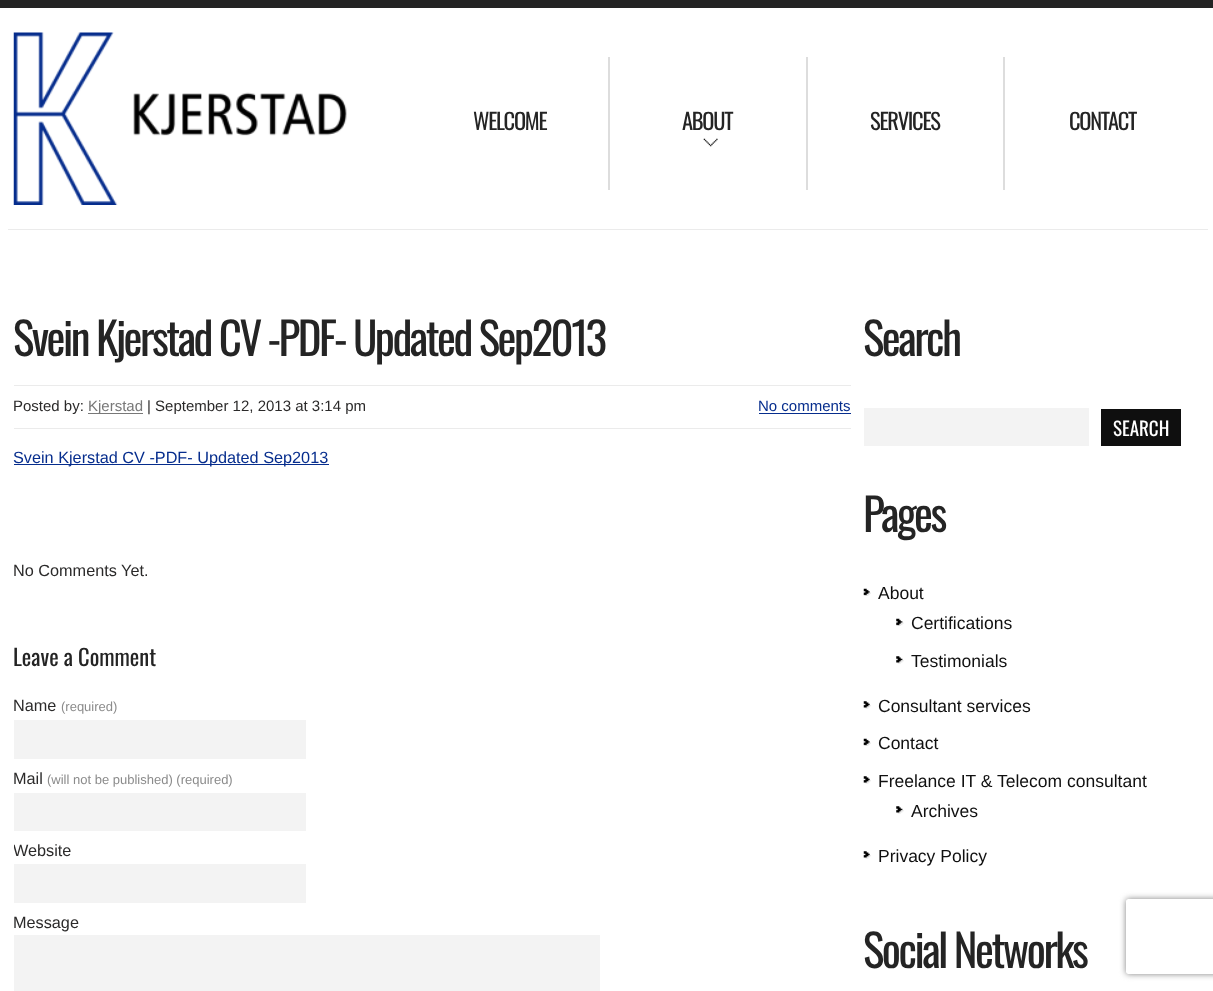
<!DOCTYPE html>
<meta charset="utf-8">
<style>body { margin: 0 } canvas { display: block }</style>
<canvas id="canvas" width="1213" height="991"></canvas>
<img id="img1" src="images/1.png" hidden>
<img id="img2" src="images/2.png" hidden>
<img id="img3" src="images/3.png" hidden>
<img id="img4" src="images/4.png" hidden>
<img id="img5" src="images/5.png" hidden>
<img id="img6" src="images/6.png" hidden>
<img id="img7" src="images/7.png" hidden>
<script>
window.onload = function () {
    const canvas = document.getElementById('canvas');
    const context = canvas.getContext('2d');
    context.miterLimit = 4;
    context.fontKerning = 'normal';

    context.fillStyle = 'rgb(255, 255, 255)';
    context.fillRect(0, 0, 1213, 991);
    context.fillStyle = 'rgb(36, 36, 36)';
    context.fillRect(0, 0, 1213, 8);
    context.drawImage(document.getElementById('img1'), 13, 32, 334, 173);
    context.fillStyle = 'rgb(221, 221, 221)';
    context.fillRect(608, 57, 2, 133);
    context.drawImage(document.getElementById('img2'), 703, 138, 15, 9);
    context.fillRect(806, 57, 2, 133);
    context.fillRect(1003, 57, 2, 133);
    context.fillStyle = 'rgb(235, 235, 235)';
    context.fillRect(8, 229, 1200, 1);
    context.fillRect(14, 385, 837, 1);
    context.fillRect(14, 428, 837, 1);
    context.fillStyle = 'rgb(120, 120, 120)';
    context.fillRect(88, 413, 55, 1);
    context.fillStyle = 'rgb(6, 45, 141)';
    context.fillRect(759, 413, 92, 1);
    context.fillRect(14, 464, 315, 1);
    context.fillStyle = 'rgb(243, 243, 243)';
    context.fillRect(14, 720, 292, 39);
    context.fillRect(14, 793, 292, 38);
    context.fillRect(14, 864, 292, 39);
    context.fillRect(14, 935, 586, 56);
    context.fillRect(864, 408, 225, 38);
    context.fillStyle = 'rgb(15, 15, 15)';
    context.fillRect(1101, 409, 80, 37);
    context.drawImage(document.getElementById('img3'), 863, 588, 8, 8);
    context.drawImage(document.getElementById('img4'), 896, 618, 8, 8);
    context.drawImage(document.getElementById('img5'), 896, 656, 8, 8);
    context.drawImage(document.getElementById('img6'), 863, 701, 8, 8);
    context.drawImage(document.getElementById('img3'), 863, 738, 8, 8);
    context.drawImage(document.getElementById('img7'), 863, 776, 8, 8);
    context.drawImage(document.getElementById('img5'), 896, 806, 8, 8);
    context.drawImage(document.getElementById('img6'), 863, 851, 8, 8);
    context.save();
    context.beginPath();
    context.moveTo(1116, 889);
    context.lineTo(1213, 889);
    context.lineTo(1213, 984);
    context.lineTo(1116, 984);
    context.closePath();
    context.moveTo(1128.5, 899);
    context.lineTo(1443.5, 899);
    context.bezierCurveTo(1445, 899, 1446, 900, 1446, 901.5);
    context.lineTo(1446, 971.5);
    context.bezierCurveTo(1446, 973, 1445, 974, 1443.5, 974);
    context.lineTo(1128.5, 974);
    context.bezierCurveTo(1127, 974, 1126, 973, 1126, 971.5);
    context.lineTo(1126, 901.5);
    context.bezierCurveTo(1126, 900, 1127, 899, 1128.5, 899);
    context.closePath();
    context.clip('evenodd');
    context.fillStyle = 'rgb(128, 128, 128)';
    context.filter = 'blur(3px)';
    context.beginPath();
    context.roundRect(1126, 899, 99, 75, 2.5);
    context.fill();
    context.filter = 'none';
    context.restore();
    context.letterSpacing = '-1.25px';
    context.font = '22.5px Oswald';
    context.fillStyle = 'rgb(36, 36, 36)';
    context.fillText('WELCOME', 473, 130);
    context.fillText('ABOUT', 682, 130);
    context.fillText('SERVICES', 870, 130);
    context.fillText('CONTACT', 1069, 130);
    context.letterSpacing = '-2.5px';
    context.font = '45px Oswald';
    context.fillText('Svein Kjerstad CV -PDF- Updated Sep2013', 13, 356);
    context.letterSpacing = '0px';
    context.font = '15px Liberation Sans';
    context.fillStyle = 'rgb(43, 42, 42)';
    context.fillText('Posted by:', 13, 411);
    context.fillStyle = 'rgb(120, 120, 120)';
    context.fillText('Kjerstad', 88, 411);
    context.fillStyle = 'rgb(43, 42, 42)';
    context.fillText('| September 12, 2013 at 3:14 pm', 147, 411);
    context.fillStyle = 'rgb(6, 45, 141)';
    context.fillText('No comments', 758, 411);
    context.font = '16.25px Liberation Sans';
    context.fillText('Svein Kjerstad CV -PDF- Updated Sep2013', 13, 463);
    context.fillStyle = 'rgb(43, 42, 42)';
    context.fillText('No Comments Yet.', 13, 576);
    context.font = '22.5px Oswald';
    context.fillStyle = 'rgb(36, 36, 36)';
    context.fillText('Leave a Comment', 13, 666);
    context.font = '16.25px Liberation Sans';
    context.fillStyle = 'rgb(43, 42, 42)';
    context.fillText('Name', 13, 711);
    context.font = '13px Liberation Sans';
    context.fillStyle = 'rgb(139, 139, 139)';
    context.fillText('(required)', 61, 711);
    context.font = '16.25px Liberation Sans';
    context.fillStyle = 'rgb(43, 42, 42)';
    context.fillText('Mail', 13, 784);
    context.font = '13px Liberation Sans';
    context.fillStyle = 'rgb(139, 139, 139)';
    context.fillText('(will not be published) (required)', 47, 784);
    context.save();
    context.beginPath();
    context.rect(14, 230, 837, 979);
    context.clip();
    context.font = '16.25px Liberation Sans';
    context.fillStyle = 'rgb(43, 42, 42)';
    context.fillText('Website', 13, 856);
    context.restore();
    context.font = '16.25px Liberation Sans';
    context.fillStyle = 'rgb(43, 42, 42)';
    context.fillText('Message', 13, 928);
    context.letterSpacing = '-2.5px';
    context.font = '45px Oswald';
    context.fillStyle = 'rgb(36, 36, 36)';
    context.fillText('Search', 863, 356);
    context.letterSpacing = '0px';
    context.font = '19px Oswald';
    context.fillStyle = 'rgb(255, 255, 255)';
    context.fillText('SEARCH', 1113, 436);
    context.letterSpacing = '-2.5px';
    context.font = '45px Oswald';
    context.fillStyle = 'rgb(36, 36, 36)';
    context.fillText('Pages', 863, 532);
    context.letterSpacing = '0px';
    context.font = '17.5px Liberation Sans';
    context.fillStyle = 'rgb(16, 16, 16)';
    context.fillText('About', 878, 599);
    context.fillText('Certifications', 911, 629);
    context.fillText('Testimonials', 911, 667);
    context.fillText('Consultant services', 878, 712);
    context.fillText('Contact', 878, 749);
    context.fillText('Freelance IT & Telecom consultant', 878, 787);
    context.fillText('Archives', 911, 817);
    context.fillText('Privacy Policy', 878, 862);
    context.letterSpacing = '-2.5px';
    context.font = '45px Oswald';
    context.fillStyle = 'rgb(36, 36, 36)';
    context.fillText('Social Networks', 863, 968);
};
</script>
